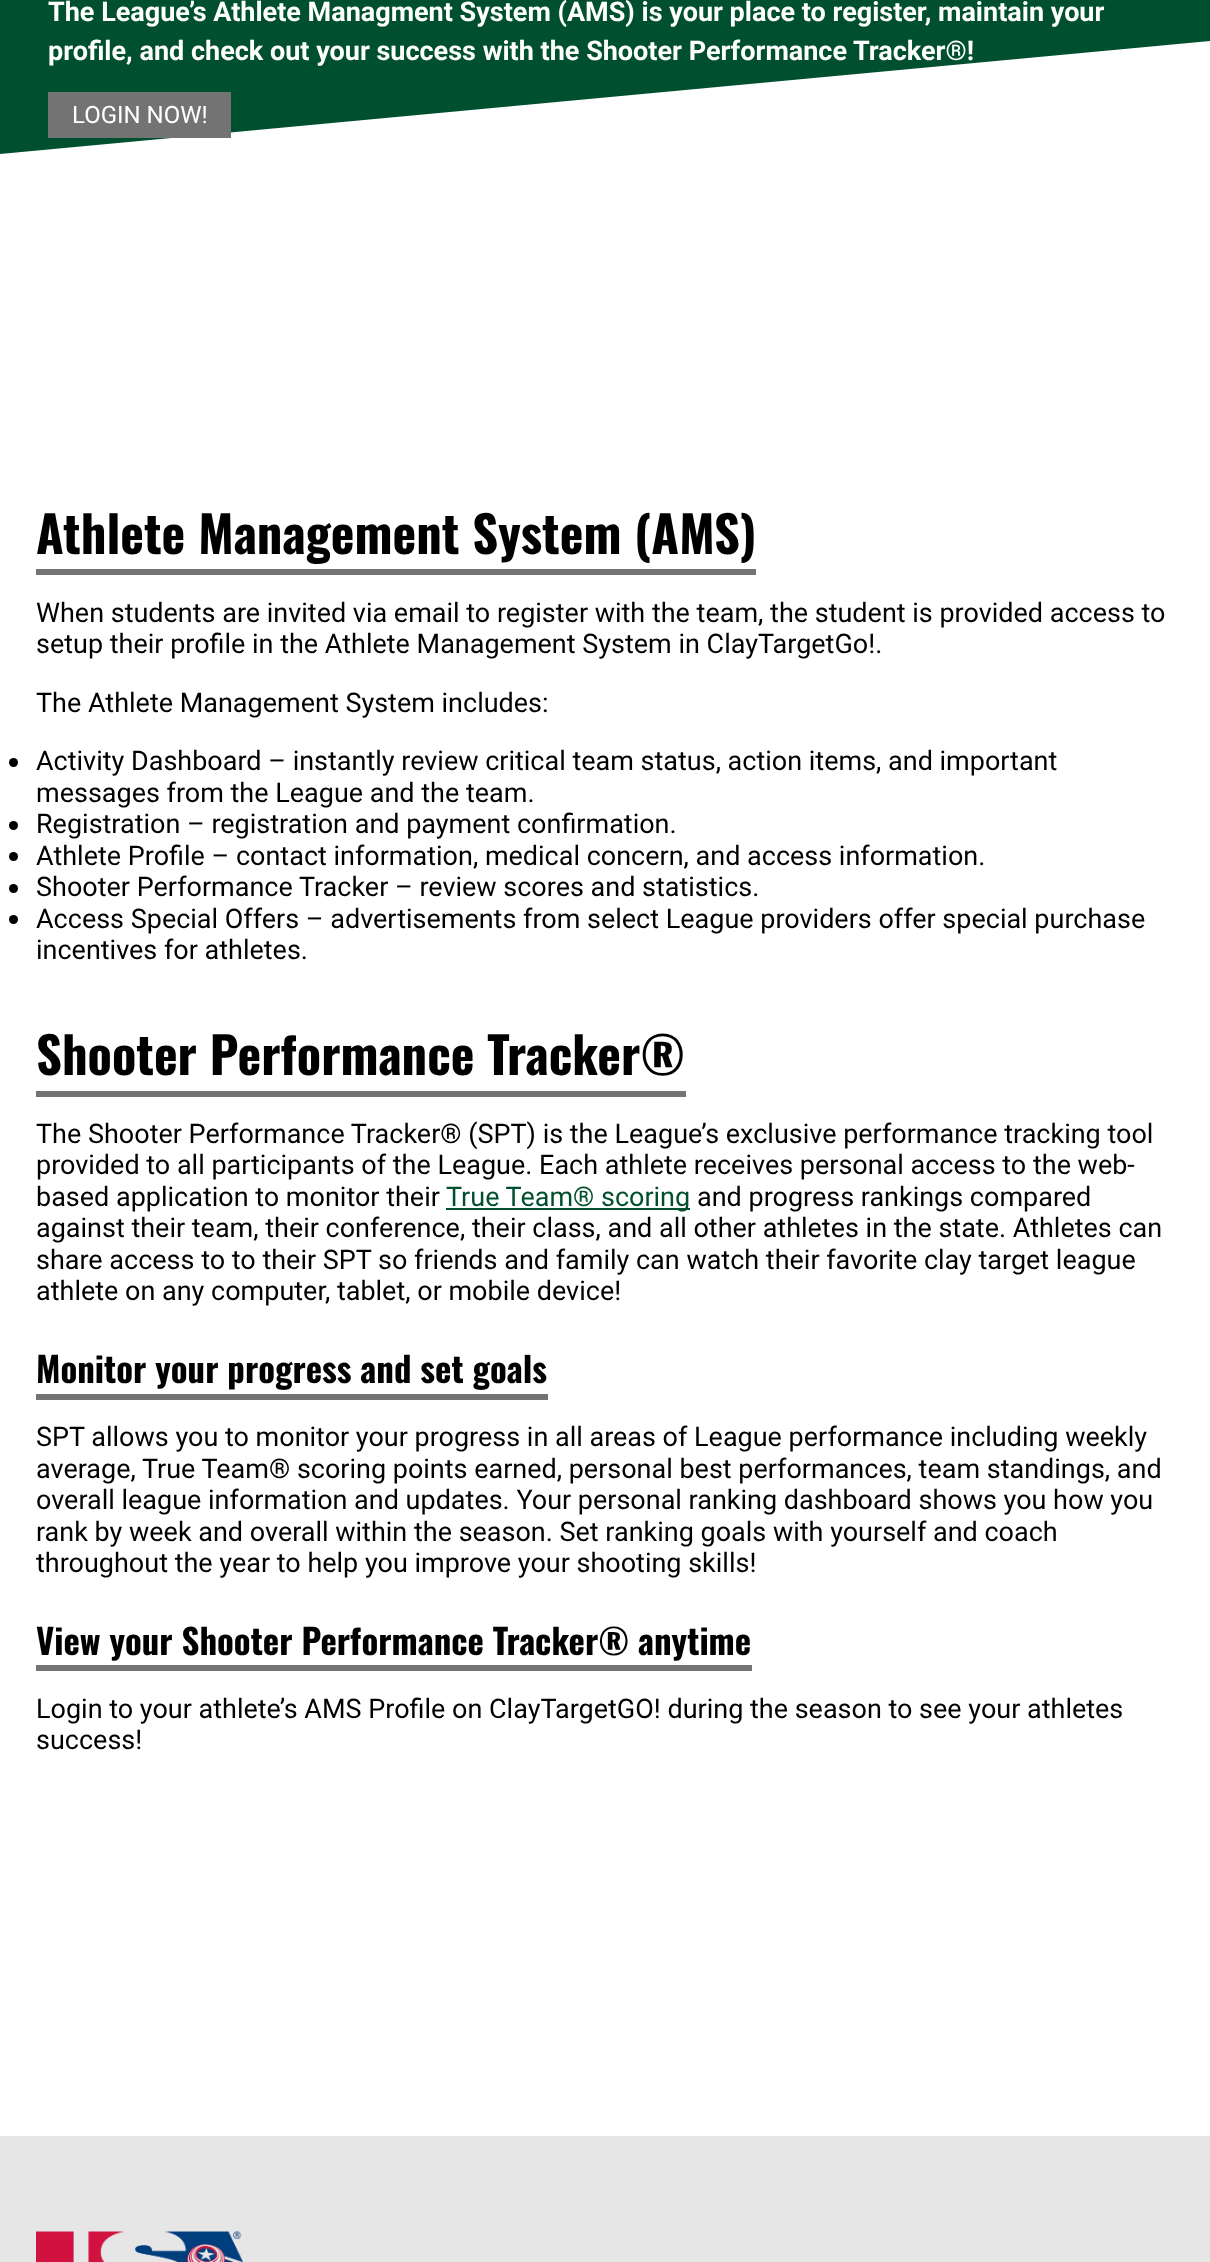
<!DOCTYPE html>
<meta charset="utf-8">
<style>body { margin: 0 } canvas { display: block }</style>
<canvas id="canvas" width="1210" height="2262"></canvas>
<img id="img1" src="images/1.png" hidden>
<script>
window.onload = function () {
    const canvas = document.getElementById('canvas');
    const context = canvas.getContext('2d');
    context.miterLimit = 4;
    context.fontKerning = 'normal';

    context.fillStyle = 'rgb(255, 255, 255)';
    context.fillRect(0, 0, 1210, 2262);
    context.fillStyle = 'rgb(0, 80, 47)';
    context.fillRect(0, 0, 1210, 154);
    context.save();
    context.beginPath();
    context.rect(0, 0, 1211, 165);
    context.clip();
    context.fillStyle = 'rgb(255, 255, 255)';
    context.beginPath();
    context.moveTo(0, 154);
    context.lineTo(0, 166);
    context.lineTo(1210, 166);
    context.lineTo(1210, 41);
    context.closePath();
    context.fill();
    context.restore();
    context.fillStyle = 'rgb(115, 115, 115)';
    context.fillRect(48, 92, 183, 46);
    context.fillRect(36, 569, 720, 6);
    context.fillStyle = 'rgb(0, 0, 0)';
    context.beginPath();
    context.arc(13.5, 762.5, 4.5, 0, 2 * Math.PI);
    context.fill();
    context.beginPath();
    context.arc(13.5, 825.5, 4.5, 0, 2 * Math.PI);
    context.fill();
    context.beginPath();
    context.arc(13.5, 856.5, 4.5, 0, 2 * Math.PI);
    context.fill();
    context.beginPath();
    context.arc(13.5, 888.5, 4.5, 0, 2 * Math.PI);
    context.fill();
    context.beginPath();
    context.arc(13.5, 919.5, 4.5, 0, 2 * Math.PI);
    context.fill();
    context.fillStyle = 'rgb(115, 115, 115)';
    context.fillRect(36, 1091, 650, 6);
    context.fillStyle = 'rgb(0, 80, 47)';
    context.fillRect(446, 1208, 244, 2);
    context.fillStyle = 'rgb(115, 115, 115)';
    context.fillRect(36, 1394, 512, 6);
    context.fillRect(36, 1665, 716, 6);
    context.fillStyle = 'rgb(230, 230, 230)';
    context.fillRect(0, 2136, 1210, 126);
    context.drawImage(document.getElementById('img1'), 36, 2231, 207, 31);
    context.font = 'bold 27px Roboto';
    context.fillStyle = 'rgb(255, 255, 255)';
    context.fillText('The League’s Athlete Managment System (AMS) is your place to register, maintain your', 48, 21);
    context.fillText('profile, and check out your success with the Shooter Performance Tracker®!', 48, 60);
    context.font = '24px Roboto';
    context.fillText('LOGIN NOW!', 72, 123);
    context.font = 'bold 50.4px Oswald';
    context.fillStyle = 'rgb(0, 0, 0)';
    context.fillText('Athlete Management System (AMS)', 36, 554);
    context.font = '27px Roboto';
    context.fillText('When students are invited via email to register with the team, the student is provided access to', 36, 622);
    context.fillText('setup their profile in the Athlete Management System in ClayTargetGo!.', 36, 653);
    context.fillText('The Athlete Management System includes:', 36, 712);
    context.fillText('Activity Dashboard – instantly review critical team status, action items, and important', 36, 770);
    context.fillText('messages from the League and the team.', 36, 802);
    context.fillText('Registration – registration and payment confirmation.', 36, 833);
    context.fillText('Athlete Profile – contact information, medical concern, and access information.', 36, 865);
    context.fillText('Shooter Performance Tracker – review scores and statistics.', 36, 896);
    context.fillText('Access Special Offers – advertisements from select League providers offer special purchase', 36, 928);
    context.fillText('incentives for athletes.', 36, 959);
    context.font = 'bold 50.4px Oswald';
    context.fillText('Shooter Performance Tracker®', 36, 1075);
    context.font = '27px Roboto';
    context.fillText('The Shooter Performance Tracker® (SPT) is the League’s exclusive performance tracking tool', 36, 1143);
    context.fillText('provided to all participants of the League. Each athlete receives personal access to the web-', 36, 1174);
    context.fillText('based application to monitor their', 36, 1206);
    context.fillStyle = 'rgb(0, 80, 47)';
    context.fillText('True Team® scoring', 446, 1206);
    context.fillStyle = 'rgb(0, 0, 0)';
    context.fillText('and progress rankings compared', 697, 1206);
    context.fillText('against their team, their conference, their class, and all other athletes in the state. Athletes can', 36, 1237);
    context.fillText('share access to to their SPT so friends and family can watch their favorite clay target league', 36, 1269);
    context.fillText('athlete on any computer, tablet, or mobile device!', 36, 1300);
    context.font = 'bold 34.75px Oswald';
    context.fillText('Monitor your progress and set goals', 36, 1383);
    context.font = '27px Roboto';
    context.fillText('SPT allows you to monitor your progress in all areas of League performance including weekly', 36, 1446);
    context.fillText('average, True Team® scoring points earned, personal best performances, team standings, and', 36, 1478);
    context.fillText('overall league information and updates. Your personal ranking dashboard shows you how you', 36, 1509);
    context.fillText('rank by week and overall within the season. Set ranking goals with yourself and coach', 36, 1541);
    context.fillText('throughout the year to help you improve your shooting skills!', 36, 1572);
    context.font = 'bold 34.75px Oswald';
    context.fillText('View your Shooter Performance Tracker® anytime', 36, 1655);
    context.font = '27px Roboto';
    context.fillText('Login to your athlete’s AMS Profile on ClayTargetGO! during the season to see your athletes', 36, 1718);
    context.fillText('success!', 36, 1749);
};
</script>
